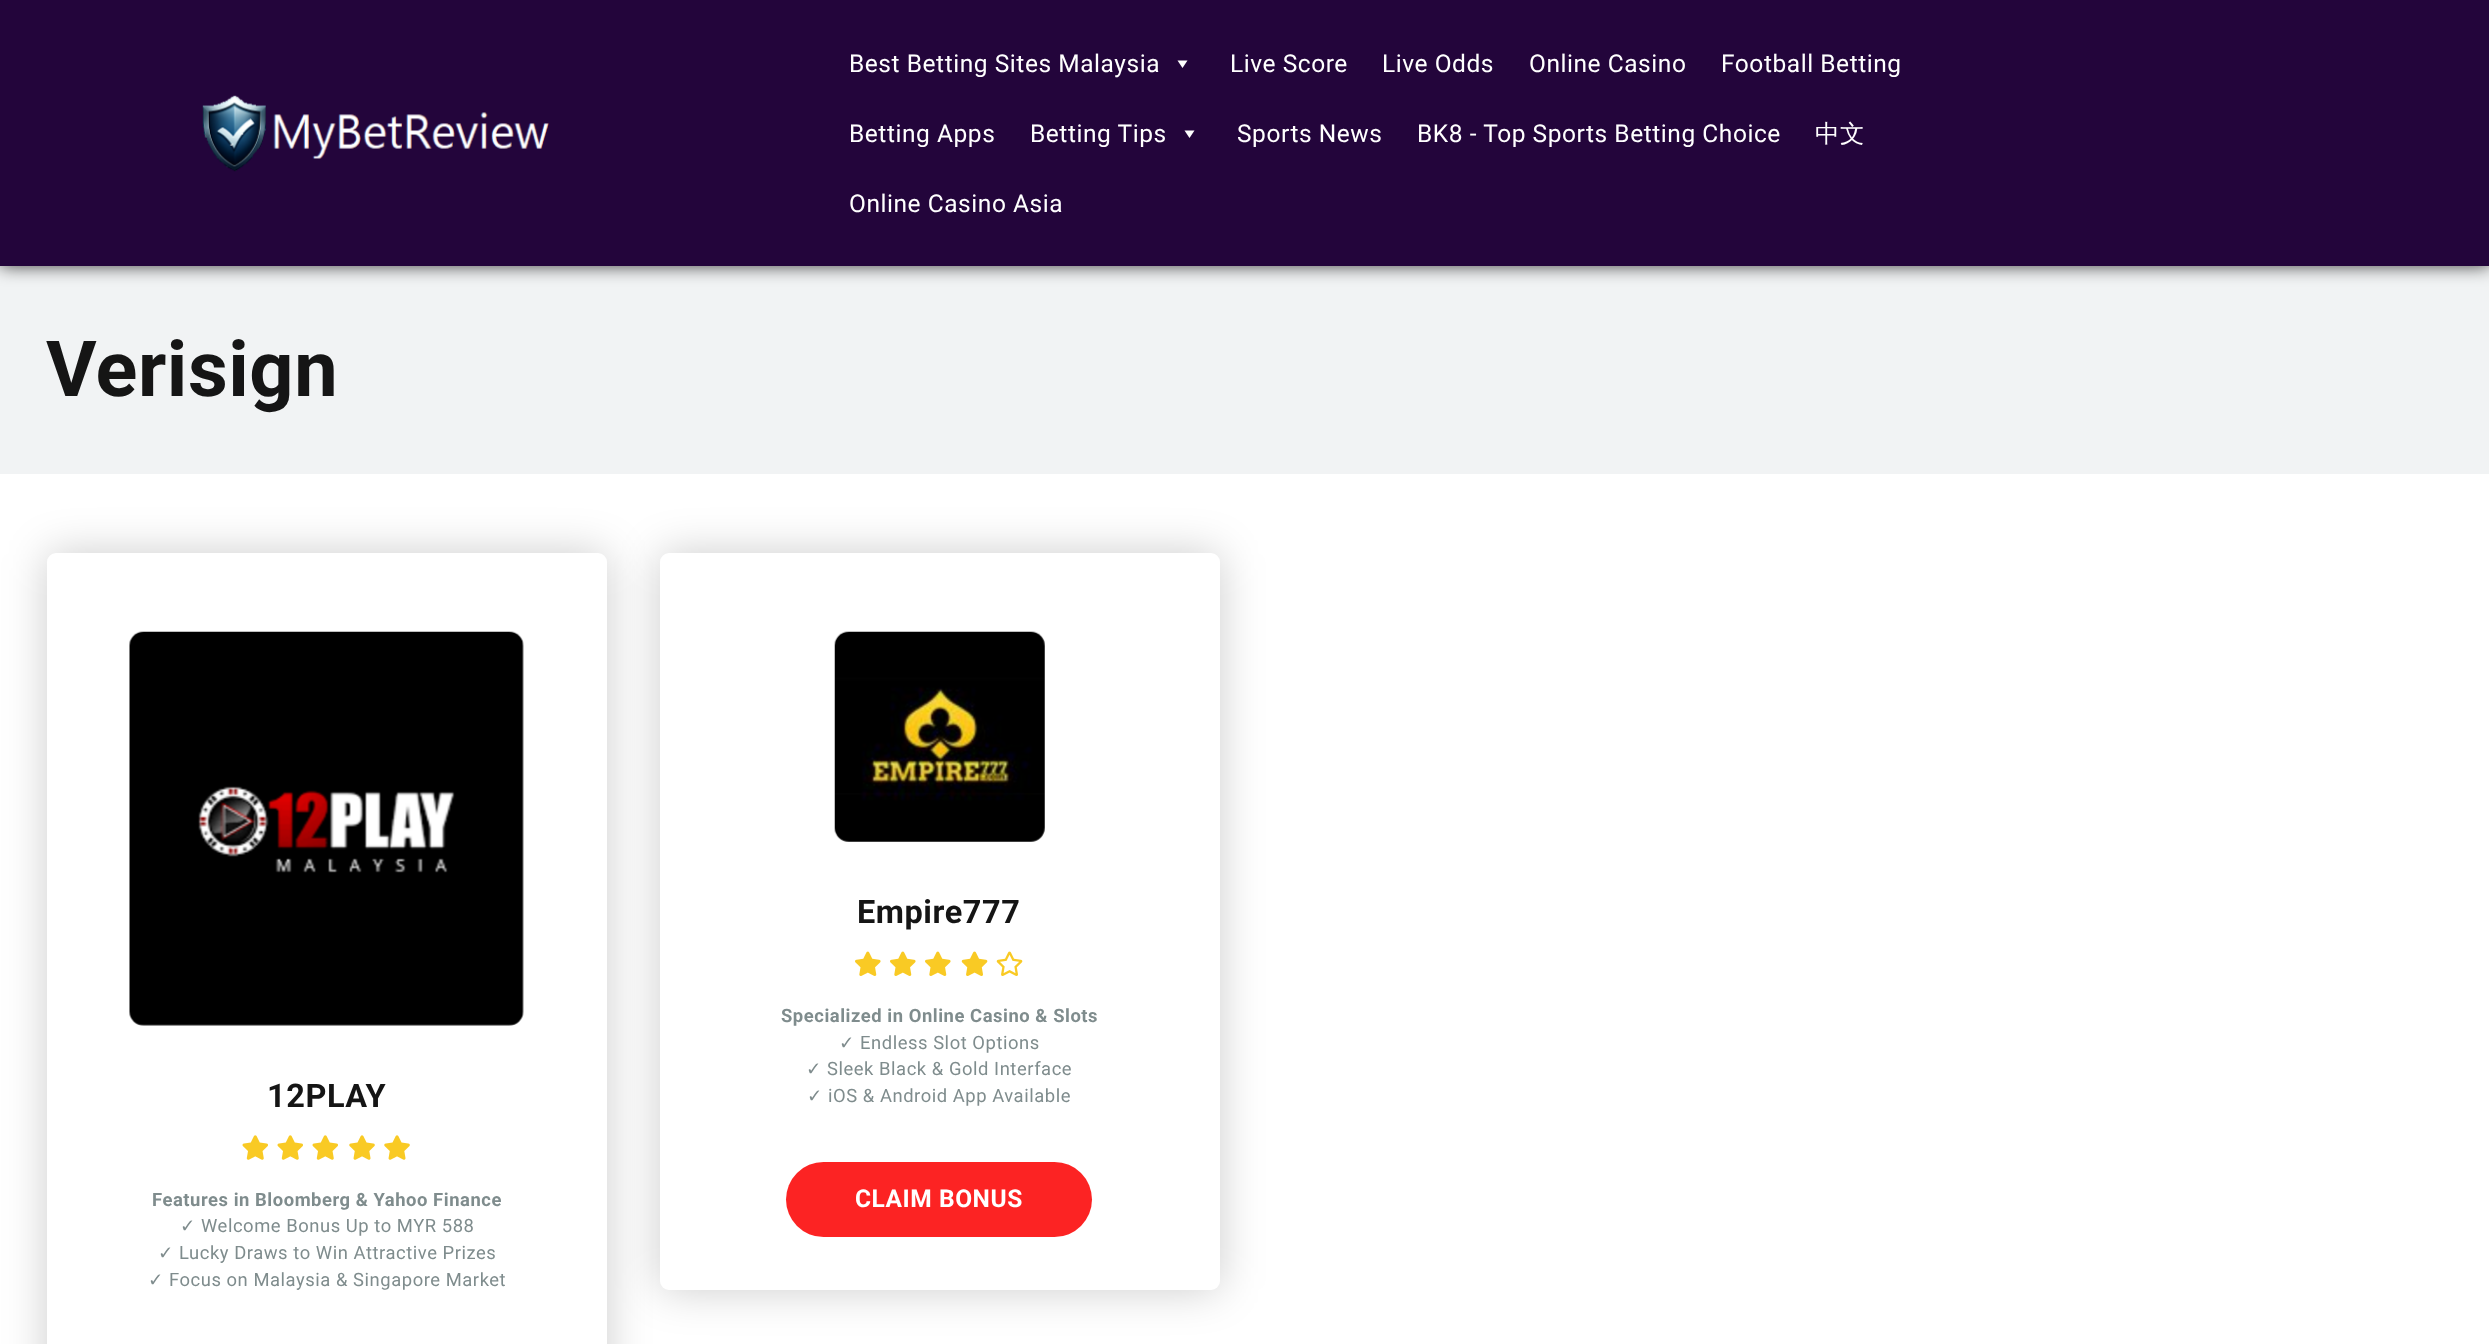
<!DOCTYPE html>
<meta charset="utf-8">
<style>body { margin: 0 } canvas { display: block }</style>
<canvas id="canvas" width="2489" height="1344"></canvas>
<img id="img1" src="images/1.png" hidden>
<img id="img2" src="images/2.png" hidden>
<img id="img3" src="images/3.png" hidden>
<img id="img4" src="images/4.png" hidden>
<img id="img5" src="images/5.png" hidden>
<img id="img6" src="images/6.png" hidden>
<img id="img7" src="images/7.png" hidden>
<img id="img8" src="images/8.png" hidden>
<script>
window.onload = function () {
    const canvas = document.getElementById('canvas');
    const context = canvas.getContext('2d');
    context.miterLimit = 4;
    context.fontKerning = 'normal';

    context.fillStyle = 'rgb(255, 255, 255)';
    context.fillRect(0, 0, 2489, 1344);
    context.fillStyle = 'rgb(241, 243, 244)';
    context.fillRect(0, 266, 2489, 208);
    context.fillStyle = 'rgba(0, 0, 0, 0.75)';
    context.filter = 'blur(9px)';
    context.beginPath();
    context.rect(0, 0, 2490, 266);
    context.fill();
    context.filter = 'none';
    context.fillStyle = 'rgb(35, 5, 59)';
    context.fillRect(0, 0, 2489, 266);
    context.drawImage(document.getElementById('img1'), 202, 95, 347, 77);
    context.fillStyle = 'rgb(255, 255, 255)';
    context.beginPath();
    context.moveTo(1187.5, 60.5);
    context.lineTo(1182.5, 68);
    context.lineTo(1177.5, 60.5);
    context.closePath();
    context.fill();
    context.beginPath();
    context.moveTo(1194.5, 130.5);
    context.lineTo(1189.5, 138);
    context.lineTo(1184.5, 130.5);
    context.closePath();
    context.fill();
    context.fillStyle = 'rgba(0, 0, 0, 0.2)';
    context.filter = 'blur(22px)';
    context.beginPath();
    context.roundRect(47, 553, 560, 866, 9);
    context.fill();
    context.filter = 'none';
    context.fillStyle = 'rgb(255, 255, 255)';
    context.beginPath();
    context.roundRect(47, 553, 560, 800, 9);
    context.fill();
    context.drawImage(document.getElementById('img2'), 129, 631, 395, 395);
    context.drawImage(document.getElementById('img3'), 242, 1135, 26, 25);
    context.drawImage(document.getElementById('img3'), 277, 1135, 26, 25);
    context.drawImage(document.getElementById('img3'), 312, 1135, 26, 25);
    context.drawImage(document.getElementById('img4'), 349, 1135, 26, 25);
    context.drawImage(document.getElementById('img4'), 384, 1135, 26, 25);
    context.fillStyle = 'rgba(0, 0, 0, 0.2)';
    context.filter = 'blur(22px)';
    context.beginPath();
    context.roundRect(660, 553, 560, 737, 9);
    context.fill();
    context.filter = 'none';
    context.fillStyle = 'rgb(255, 255, 255)';
    context.beginPath();
    context.roundRect(660, 553, 560, 737, 9);
    context.fill();
    context.drawImage(document.getElementById('img5'), 834, 631, 211, 211);
    context.drawImage(document.getElementById('img6'), 855, 951, 26, 25);
    context.drawImage(document.getElementById('img6'), 890, 951, 26, 25);
    context.drawImage(document.getElementById('img6'), 925, 951, 26, 25);
    context.drawImage(document.getElementById('img7'), 961, 951, 27, 25);
    context.drawImage(document.getElementById('img8'), 996, 951, 27, 25);
    context.fillStyle = 'rgb(252, 35, 35)';
    context.beginPath();
    context.roundRect(786, 1162, 306, 75, 37.5);
    context.fill();
    context.letterSpacing = '0.55px';
    context.font = '24.5px Roboto';
    context.fillStyle = 'rgb(255, 255, 255)';
    context.fillText('Best Betting Sites Malaysia', 849, 72);
    context.fillText('Live Score', 1230, 72);
    context.fillText('Live Odds', 1382, 72);
    context.fillText('Online Casino', 1529, 72);
    context.fillText('Football Betting', 1721, 72);
    context.fillText('Betting Apps', 849, 142);
    context.fillText('Betting Tips', 1030, 142);
    context.fillText('Sports News', 1237, 142);
    context.fillText('BK8 - Top Sports Betting Choice', 1417, 142);
    context.font = '500 24.5px WenQuanYi Zen Hei';
    context.fillText('中文', 1815, 142);
    context.font = '24.5px Roboto';
    context.fillText('Online Casino Asia', 849, 212);
    context.font = 'bold 77.5px Roboto';
    context.fillStyle = 'rgb(21, 21, 21)';
    context.fillText('Verisign', 46, 396);
    context.font = 'bold 32.5px Roboto';
    context.fillText('12PLAY', 267, 1107);
    context.font = 'bold 18.4px Roboto';
    context.fillStyle = 'rgb(127, 140, 141)';
    context.fillText('Features in Bloomberg & Yahoo Finance', 152, 1206);
    context.font = '18.4px DejaVu Sans';
    context.fillText('✓', 180, 1232);
    context.font = '18.4px Roboto';
    context.fillText('Welcome Bonus Up to MYR 588', 201, 1232);
    context.font = '18.4px DejaVu Sans';
    context.fillText('✓', 158, 1259);
    context.font = '18.4px Roboto';
    context.fillText('Lucky Draws to Win Attractive Prizes', 179, 1259);
    context.font = '18.4px DejaVu Sans';
    context.fillText('✓', 148, 1286);
    context.font = '18.4px Roboto';
    context.fillText('Focus on Malaysia & Singapore Market', 169, 1286);
    context.font = 'bold 32.5px Roboto';
    context.fillStyle = 'rgb(21, 21, 21)';
    context.fillText('Empire777', 857, 923);
    context.font = 'bold 18.4px Roboto';
    context.fillStyle = 'rgb(127, 140, 141)';
    context.fillText('Specialized in Online Casino & Slots', 781, 1022);
    context.font = '18.4px DejaVu Sans';
    context.fillText('✓', 839, 1049);
    context.font = '18.4px Roboto';
    context.fillText('Endless Slot Options', 860, 1049);
    context.font = '18.4px DejaVu Sans';
    context.fillText('✓', 806, 1075);
    context.font = '18.4px Roboto';
    context.fillText('Sleek Black & Gold Interface', 827, 1075);
    context.font = '18.4px DejaVu Sans';
    context.fillText('✓', 807, 1102);
    context.font = '18.4px Roboto';
    context.fillText('iOS & Android App Available', 828, 1102);
    context.font = 'bold 24.5px Roboto';
    context.fillStyle = 'rgb(255, 255, 255)';
    context.fillText('CLAIM BONUS', 855, 1207);
};
</script>
